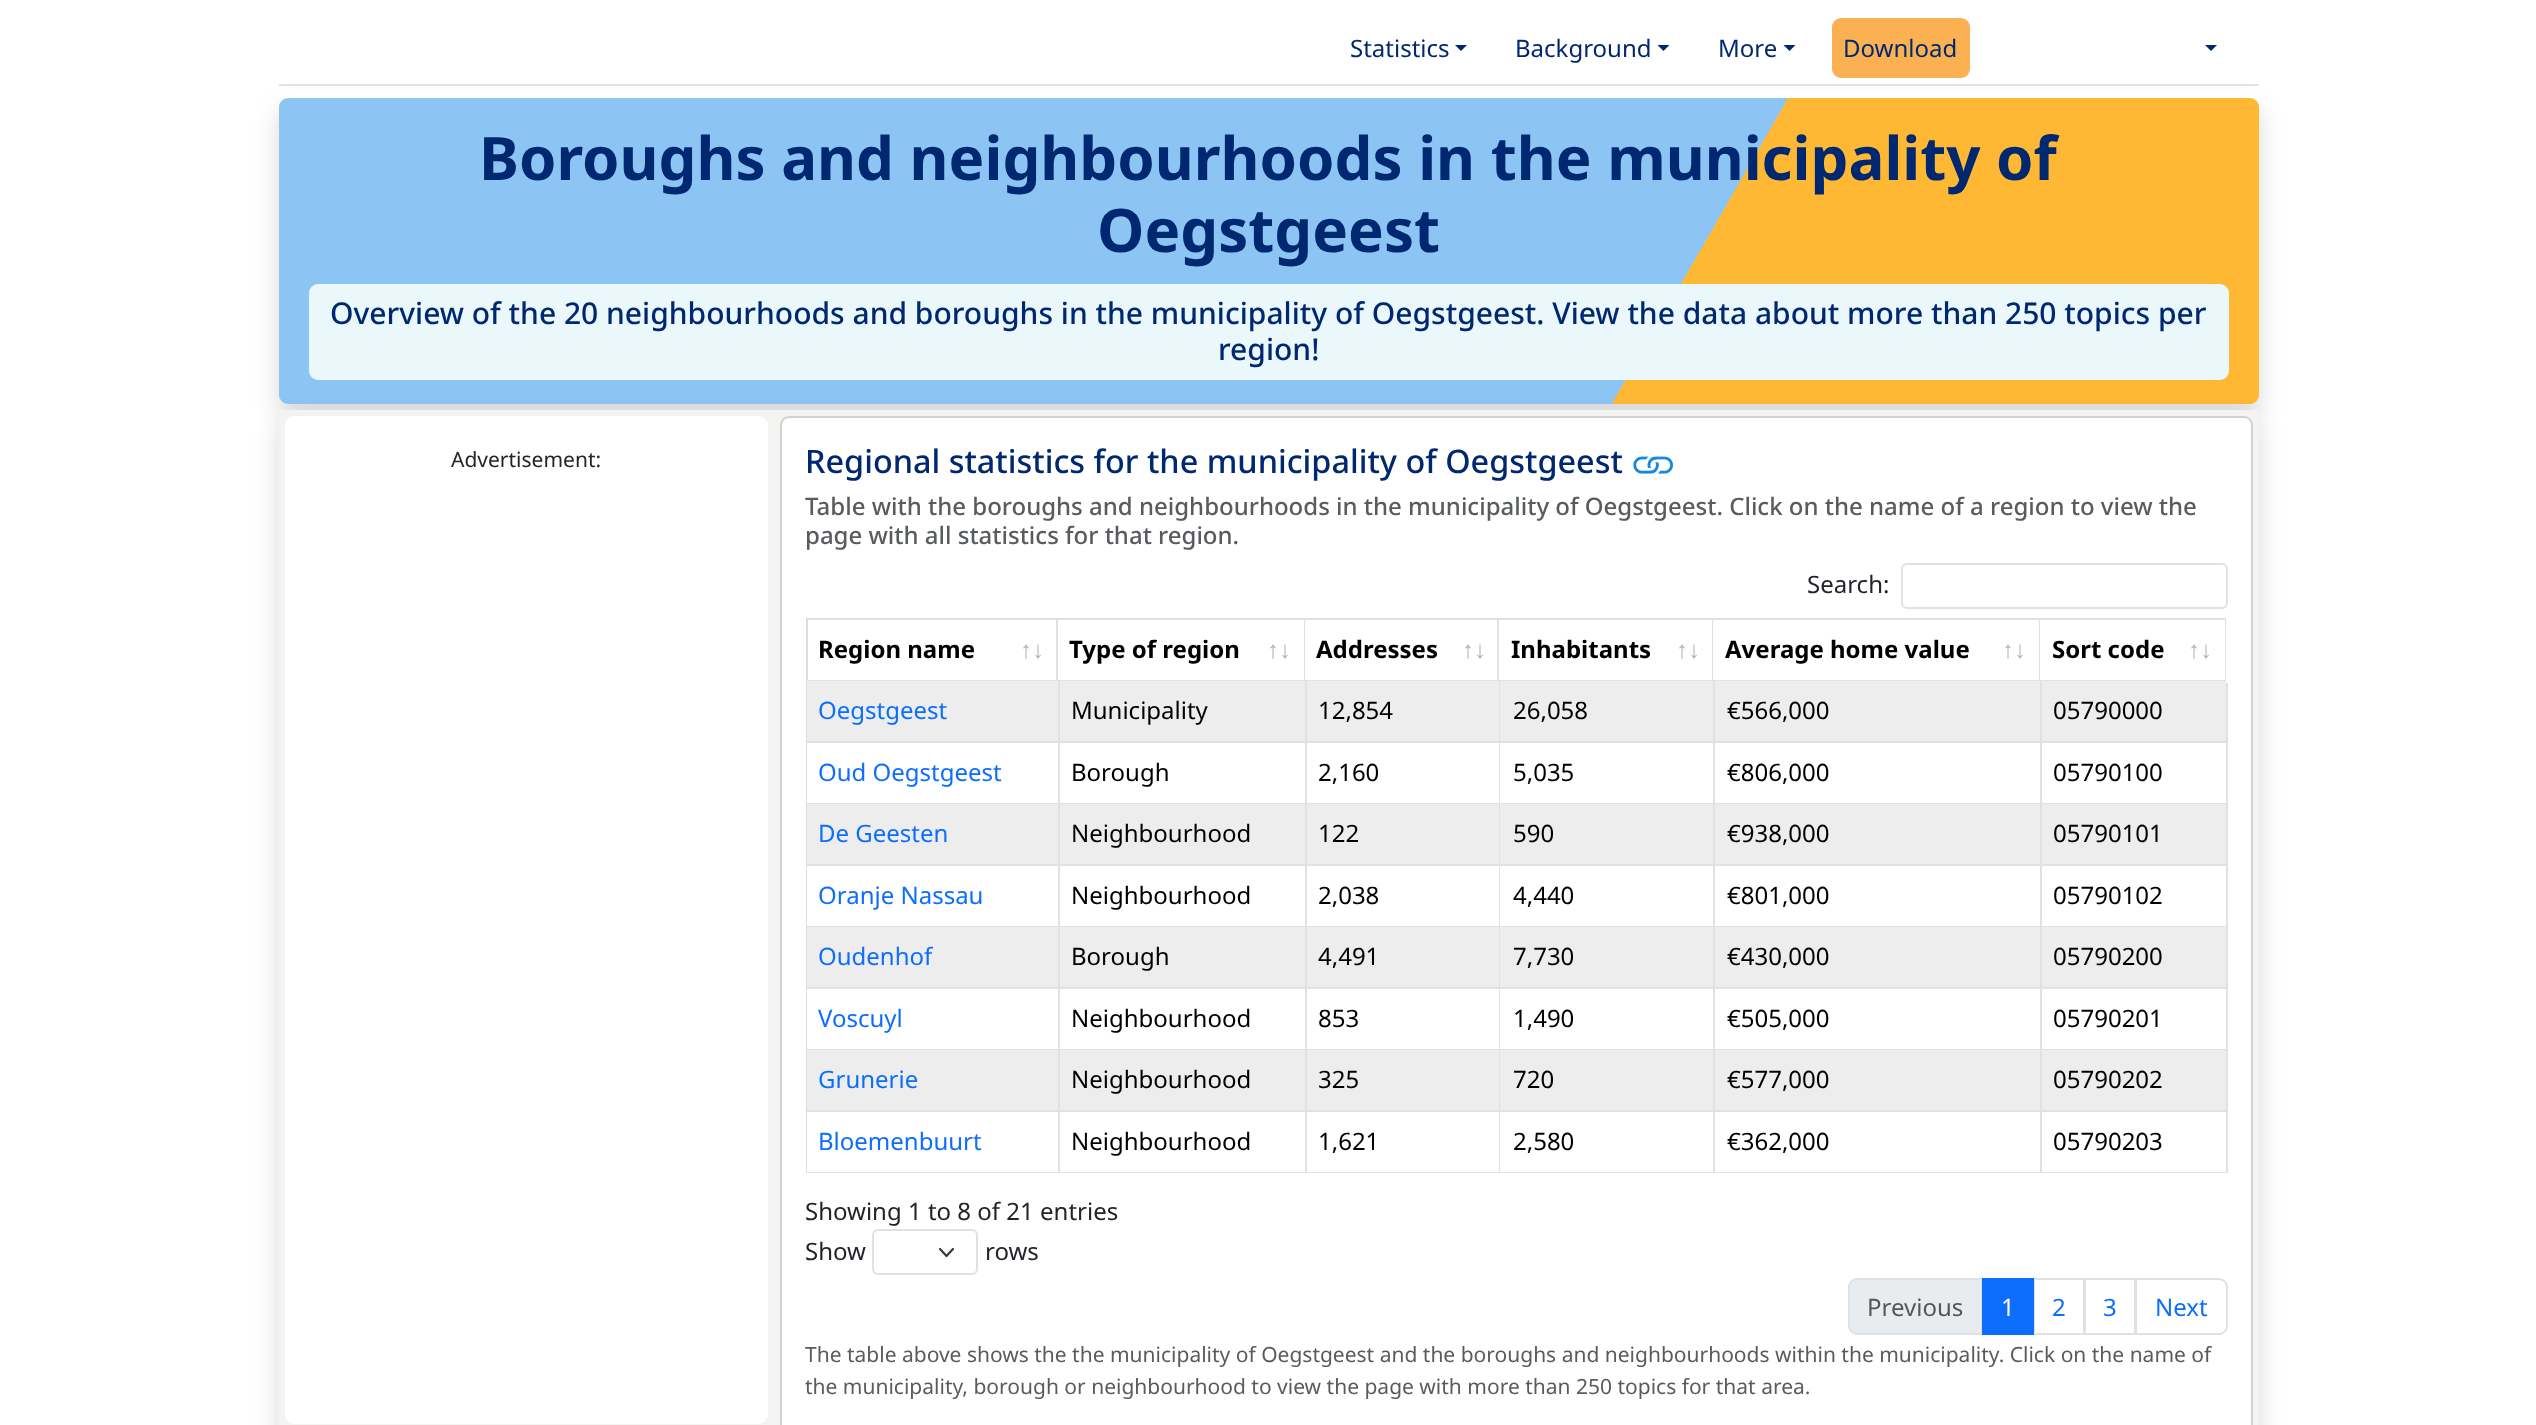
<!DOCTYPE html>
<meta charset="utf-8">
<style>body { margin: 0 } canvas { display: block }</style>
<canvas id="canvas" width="2536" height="1425"></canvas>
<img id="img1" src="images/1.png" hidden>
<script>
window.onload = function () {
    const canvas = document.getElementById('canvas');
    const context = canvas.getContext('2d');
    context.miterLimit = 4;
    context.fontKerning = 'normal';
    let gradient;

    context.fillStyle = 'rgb(255, 255, 255)';
    context.fillRect(0, 0, 2536, 1425);
    context.fillStyle = 'rgba(0, 0, 0, 0.15)';
    context.filter = 'blur(12px)';
    context.beginPath();
    context.roundRect(279, 110, 1980, 306, 9);
    context.fill();
    context.filter = 'none';
    context.fillStyle = 'rgb(255, 255, 255)';
    context.fillRect(279, 92, 1980, 6);
    context.fillStyle = 'rgb(222, 226, 230)';
    context.fillRect(279, 84, 1980, 2);
    context.fillStyle = 'rgb(0, 40, 112)';
    context.beginPath();
    context.moveTo(1455, 45);
    context.lineTo(1467, 45);
    context.lineTo(1461, 51);
    context.closePath();
    context.fill();
    context.beginPath();
    context.moveTo(1657.5, 45);
    context.lineTo(1669.5, 45);
    context.lineTo(1663.5, 51);
    context.closePath();
    context.fill();
    context.beginPath();
    context.moveTo(1783.5, 45);
    context.lineTo(1795.5, 45);
    context.lineTo(1789.5, 51);
    context.closePath();
    context.fill();
    context.fillStyle = 'rgb(251, 177, 81)';
    context.beginPath();
    context.roundRect(1832, 18, 138, 60, 9);
    context.fill();
    context.fillStyle = 'rgb(0, 40, 112)';
    context.beginPath();
    context.moveTo(2205, 45);
    context.lineTo(2217, 45);
    context.lineTo(2211, 51);
    context.closePath();
    context.fill();
    gradient = context.createLinearGradient(460, -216, 2078, 717);
    gradient.addColorStop(0.7, 'rgb(140, 196, 243)');
    gradient.addColorStop(0.7, 'rgb(255, 184, 51)');
    context.fillStyle = gradient;
    context.beginPath();
    context.roundRect(279, 98, 1980, 306, 9);
    context.fill();
    context.fillStyle = 'rgb(234, 247, 251)';
    context.beginPath();
    context.roundRect(309, 284, 1920, 96, 9);
    context.fill();
    context.fillStyle = 'rgba(0, 0, 0, 0.15)';
    context.filter = 'blur(12px)';
    context.beginPath();
    context.roundRect(279, 422, 1980, 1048, 9);
    context.fill();
    context.filter = 'none';
    context.fillStyle = 'rgb(243, 243, 242)';
    context.fillRect(279, 410, 1980, 1015);
    context.fillStyle = 'rgb(255, 255, 255)';
    context.beginPath();
    context.roundRect(285, 416, 483, 1008, 9);
    context.fill();
    context.beginPath();
    context.roundRect(780, 416, 1473, 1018, 9);
    context.fill();
    context.beginPath();
    context.roundRect(781, 417, 1471, 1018, 8);
    context.strokeStyle = 'rgba(0, 0, 0, 0.18)';
    context.lineWidth = 2;
    context.stroke();
    context.drawImage(document.getElementById('img1'), 1633, 456, 40, 18);
    context.beginPath();
    context.roundRect(1902, 564, 325, 44, 5);
    context.strokeStyle = 'rgb(222, 226, 230)';
    context.stroke();
    context.fillStyle = 'rgb(222, 226, 230)';
    context.fillRect(806, 618, 1420, 2);
    context.fillRect(1058, 680, 1168, 1);
    context.fillRect(1056, 618, 2, 63);
    context.fillRect(806, 680, 252, 1);
    context.fillStyle = 'rgb(221, 221, 221)';
    context.fillRect(806, 618, 2, 63);
    context.fillStyle = 'rgb(222, 226, 230)';
    context.fillRect(1304, 618, 2, 63);
    context.fillStyle = 'rgb(255, 255, 255)';
    context.fillRect(1305, 620, 1, 60);
    context.fillStyle = 'rgb(222, 226, 230)';
    context.fillRect(1497, 618, 2, 63);
    context.fillRect(1712, 618, 2, 63);
    context.fillStyle = 'rgb(255, 255, 255)';
    context.fillRect(1713, 620, 1, 60);
    context.fillStyle = 'rgb(222, 226, 230)';
    context.fillRect(2039, 618, 2, 63);
    context.fillStyle = 'rgb(255, 255, 255)';
    context.fillRect(2040, 620, 1, 60);
    context.fillStyle = 'rgb(222, 226, 230)';
    context.fillRect(2225, 618, 1, 63);
    context.fillRect(2226, 681, 2, 492);
    context.fillStyle = 'rgb(255, 255, 255)';
    context.fillRect(2226, 681, 2, 2);
    context.fillStyle = 'rgb(221, 221, 221)';
    context.fillRect(806, 681, 1, 492);
    context.fillStyle = 'rgb(237, 237, 237)';
    context.fillRect(807, 681, 251, 60);
    context.fillStyle = 'rgb(222, 226, 230)';
    context.fillRect(1305, 681, 2, 492);
    context.fillRect(1059, 741, 248, 2);
    context.fillRect(1499, 681, 1, 492);
    context.fillRect(1713, 681, 2, 492);
    context.fillRect(2040, 681, 2, 492);
    context.fillRect(1059, 803, 1169, 1);
    context.fillRect(1059, 864, 1169, 2);
    context.fillRect(1059, 926, 1169, 1);
    context.fillRect(1059, 987, 1169, 2);
    context.fillRect(1059, 1049, 1169, 1);
    context.fillRect(1059, 1110, 1169, 2);
    context.fillRect(1059, 1172, 1169, 1);
    context.fillRect(1058, 681, 2, 492);
    context.fillRect(807, 741, 252, 2);
    context.fillStyle = 'rgb(237, 237, 237)';
    context.fillRect(1060, 681, 245, 60);
    context.fillRect(1307, 681, 192, 60);
    context.fillStyle = 'rgb(222, 226, 230)';
    context.fillRect(1307, 741, 193, 2);
    context.fillStyle = 'rgb(237, 237, 237)';
    context.fillRect(1500, 681, 213, 60);
    context.fillStyle = 'rgb(222, 226, 230)';
    context.fillRect(1500, 741, 215, 2);
    context.fillStyle = 'rgb(237, 237, 237)';
    context.fillRect(1715, 681, 325, 60);
    context.fillStyle = 'rgb(222, 226, 230)';
    context.fillRect(1715, 741, 327, 2);
    context.fillStyle = 'rgb(237, 237, 237)';
    context.fillRect(2042, 681, 184, 60);
    context.fillStyle = 'rgb(222, 226, 230)';
    context.fillRect(2042, 741, 186, 2);
    context.fillRect(807, 803, 252, 1);
    context.fillStyle = 'rgb(237, 237, 237)';
    context.fillRect(807, 804, 251, 60);
    context.fillStyle = 'rgb(222, 226, 230)';
    context.fillRect(807, 864, 252, 2);
    context.fillStyle = 'rgb(237, 237, 237)';
    context.fillRect(1060, 804, 245, 60);
    context.fillRect(1307, 804, 192, 60);
    context.fillRect(1500, 804, 213, 60);
    context.fillRect(1715, 804, 325, 60);
    context.fillRect(2042, 804, 184, 60);
    context.fillStyle = 'rgb(222, 226, 230)';
    context.fillRect(807, 926, 252, 1);
    context.fillStyle = 'rgb(237, 237, 237)';
    context.fillRect(807, 927, 251, 60);
    context.fillStyle = 'rgb(222, 226, 230)';
    context.fillRect(807, 987, 252, 2);
    context.fillStyle = 'rgb(237, 237, 237)';
    context.fillRect(1060, 927, 245, 60);
    context.fillRect(1307, 927, 192, 60);
    context.fillRect(1500, 927, 213, 60);
    context.fillRect(1715, 927, 325, 60);
    context.fillRect(2042, 927, 184, 60);
    context.fillStyle = 'rgb(222, 226, 230)';
    context.fillRect(807, 1049, 252, 1);
    context.fillStyle = 'rgb(237, 237, 237)';
    context.fillRect(807, 1050, 251, 60);
    context.fillStyle = 'rgb(222, 226, 230)';
    context.fillRect(807, 1110, 252, 2);
    context.fillStyle = 'rgb(237, 237, 237)';
    context.fillRect(1060, 1050, 245, 60);
    context.fillRect(1307, 1050, 192, 60);
    context.fillRect(1500, 1050, 213, 60);
    context.fillRect(1715, 1050, 325, 60);
    context.fillRect(2042, 1050, 184, 60);
    context.fillStyle = 'rgb(222, 226, 230)';
    context.fillRect(807, 1172, 252, 1);
    context.beginPath();
    context.moveTo(940, 1249);
    context.lineTo(946.5, 1256);
    context.lineTo(953, 1249);
    context.strokeStyle = 'rgb(52, 58, 64)';
    context.lineWidth = 2.2;
    context.lineCap = 'round';
    context.lineJoin = 'round';
    context.stroke();
    context.beginPath();
    context.roundRect(873, 1230, 104, 44, 5);
    context.strokeStyle = 'rgb(222, 226, 230)';
    context.lineWidth = 2;
    context.lineJoin = 'miter';
    context.stroke();
    context.fillStyle = 'rgb(233, 236, 239)';
    context.beginPath();
    context.roundRect(1849, 1279, 133, 55, [8, 0, 0, 8]);
    context.fill();
    context.stroke();
    context.strokeRect(2034, 1279, 50, 55);
    context.fillStyle = 'rgb(13, 110, 253)';
    context.fillRect(1982, 1278, 52, 57);
    context.strokeRect(2085, 1279, 50, 55);
    context.fillStyle = 'rgb(255, 255, 255)';
    context.beginPath();
    context.roundRect(2136, 1279, 91, 55, [0, 8, 8, 0]);
    context.fill();
    context.stroke();
    context.font = '24px Noto Sans';
    context.fillStyle = 'rgb(0, 40, 112)';
    context.fillText('Statistics', 1350, 57);
    context.fillText('Background', 1515, 57);
    context.fillText('More', 1718, 57);
    context.fillText('Download', 1843, 57);
    context.font = 'bold 60px Noto Sans';
    context.fillText('Boroughs and neighbourhoods in the municipality of', 479, 180);
    context.fillText('Oegstgeest', 1097, 252);
    context.font = '500 30px Noto Sans';
    context.fillText('Overview of the 20 neighbourhoods and boroughs in the municipality of Oegstgeest. View the data about more than 250 topics per', 330, 324);
    context.fillText('region!', 1218, 360);
    context.font = '21px Noto Sans';
    context.fillStyle = 'rgb(33, 37, 41)';
    context.fillText('Advertisement:', 451, 467);
    context.font = '500 32.4px Noto Sans';
    context.fillStyle = 'rgb(0, 40, 112)';
    context.fillText('Regional statistics for the municipality of Oegstgeest', 805, 473);
    context.font = '500 24px Noto Sans';
    context.fillStyle = 'rgb(89, 92, 95)';
    context.fillText('Table with the boroughs and neighbourhoods in the municipality of Oegstgeest. Click on the name of a region to view the', 805, 515);
    context.fillText('page with all statistics for that region.', 805, 544);
    context.font = '24px Noto Sans';
    context.fillStyle = 'rgb(33, 37, 41)';
    context.fillText('Search:', 1807, 593);
    context.font = 'bold 24px Noto Sans';
    context.fillStyle = 'rgb(0, 0, 0)';
    context.fillText('Region name', 818, 658);
    context.font = 'bold 24px Liberation Sans';
    context.fillStyle = 'rgb(179, 179, 179)';
    context.fillText('↑↓', 1020, 658);
    context.font = 'bold 24px Noto Sans';
    context.fillStyle = 'rgb(0, 0, 0)';
    context.fillText('Type of region', 1069, 658);
    context.font = 'bold 24px Liberation Sans';
    context.fillStyle = 'rgb(179, 179, 179)';
    context.fillText('↑↓', 1267, 658);
    context.font = 'bold 24px Noto Sans';
    context.fillStyle = 'rgb(0, 0, 0)';
    context.fillText('Addresses', 1316, 658);
    context.font = 'bold 24px Liberation Sans';
    context.fillStyle = 'rgb(179, 179, 179)';
    context.fillText('↑↓', 1462, 658);
    context.font = 'bold 24px Noto Sans';
    context.fillStyle = 'rgb(0, 0, 0)';
    context.fillText('Inhabitants', 1511, 658);
    context.font = 'bold 24px Liberation Sans';
    context.fillStyle = 'rgb(179, 179, 179)';
    context.fillText('↑↓', 1676, 658);
    context.font = 'bold 24px Noto Sans';
    context.fillStyle = 'rgb(0, 0, 0)';
    context.fillText('Average home value', 1725, 658);
    context.font = 'bold 24px Liberation Sans';
    context.fillStyle = 'rgb(179, 179, 179)';
    context.fillText('↑↓', 2002, 658);
    context.font = 'bold 24px Noto Sans';
    context.fillStyle = 'rgb(0, 0, 0)';
    context.fillText('Sort code', 2052, 658);
    context.font = 'bold 24px Liberation Sans';
    context.fillStyle = 'rgb(179, 179, 179)';
    context.fillText('↑↓', 2188, 658);
    context.font = '24px Noto Sans';
    context.fillStyle = 'rgb(13, 110, 253)';
    context.fillText('Oegstgeest', 818, 719);
    context.fillStyle = 'rgb(0, 0, 0)';
    context.fillText('Municipality', 1071, 719);
    context.fillText('12,854', 1318, 719);
    context.fillText('26,058', 1513, 719);
    context.fillText('€566,000', 1727, 719);
    context.fillText('05790000', 2053, 719);
    context.fillStyle = 'rgb(13, 110, 253)';
    context.fillText('Oud Oegstgeest', 818, 781);
    context.fillStyle = 'rgb(0, 0, 0)';
    context.fillText('Borough', 1071, 781);
    context.fillText('2,160', 1318, 781);
    context.fillText('5,035', 1513, 781);
    context.fillText('€806,000', 1727, 781);
    context.fillText('05790100', 2053, 781);
    context.fillStyle = 'rgb(13, 110, 253)';
    context.fillText('De Geesten', 818, 842);
    context.fillStyle = 'rgb(0, 0, 0)';
    context.fillText('Neighbourhood', 1071, 842);
    context.fillText('122', 1318, 842);
    context.fillText('590', 1513, 842);
    context.fillText('€938,000', 1727, 842);
    context.fillText('05790101', 2053, 842);
    context.fillStyle = 'rgb(13, 110, 253)';
    context.fillText('Oranje Nassau', 818, 904);
    context.fillStyle = 'rgb(0, 0, 0)';
    context.fillText('Neighbourhood', 1071, 904);
    context.fillText('2,038', 1318, 904);
    context.fillText('4,440', 1513, 904);
    context.fillText('€801,000', 1727, 904);
    context.fillText('05790102', 2053, 904);
    context.fillStyle = 'rgb(13, 110, 253)';
    context.fillText('Oudenhof', 818, 965);
    context.fillStyle = 'rgb(0, 0, 0)';
    context.fillText('Borough', 1071, 965);
    context.fillText('4,491', 1318, 965);
    context.fillText('7,730', 1513, 965);
    context.fillText('€430,000', 1727, 965);
    context.fillText('05790200', 2053, 965);
    context.fillStyle = 'rgb(13, 110, 253)';
    context.fillText('Voscuyl', 818, 1027);
    context.fillStyle = 'rgb(0, 0, 0)';
    context.fillText('Neighbourhood', 1071, 1027);
    context.fillText('853', 1318, 1027);
    context.fillText('1,490', 1513, 1027);
    context.fillText('€505,000', 1727, 1027);
    context.fillText('05790201', 2053, 1027);
    context.fillStyle = 'rgb(13, 110, 253)';
    context.fillText('Grunerie', 818, 1088);
    context.fillStyle = 'rgb(0, 0, 0)';
    context.fillText('Neighbourhood', 1071, 1088);
    context.fillText('325', 1318, 1088);
    context.fillText('720', 1513, 1088);
    context.fillText('€577,000', 1727, 1088);
    context.fillText('05790202', 2053, 1088);
    context.fillStyle = 'rgb(13, 110, 253)';
    context.fillText('Bloemenbuurt', 818, 1150);
    context.fillStyle = 'rgb(0, 0, 0)';
    context.fillText('Neighbourhood', 1071, 1150);
    context.fillText('1,621', 1318, 1150);
    context.fillText('2,580', 1513, 1150);
    context.fillText('€362,000', 1727, 1150);
    context.fillText('05790203', 2053, 1150);
    context.fillStyle = 'rgb(33, 37, 41)';
    context.fillText('Showing 1 to 8 of 21 entries', 805, 1220);
    context.fillText('Show', 805, 1260);
    context.fillText('rows', 985, 1260);
    context.fillStyle = 'rgb(83, 87, 91)';
    context.fillText('Previous', 1867, 1316);
    context.fillStyle = 'rgb(255, 255, 255)';
    context.fillText('1', 2001, 1316);
    context.fillStyle = 'rgb(13, 110, 253)';
    context.fillText('2', 2052, 1316);
    context.fillText('3', 2103, 1316);
    context.fillText('Next', 2155, 1316);
    context.font = '21px Noto Sans';
    context.fillStyle = 'rgb(89, 92, 95)';
    context.fillText('The table above shows the the municipality of Oegstgeest and the boroughs and neighbourhoods within the municipality. Click on the name of', 805, 1362);
    context.fillText('the municipality, borough or neighbourhood to view the page with more than 250 topics for that area.', 805, 1394);
};
</script>
